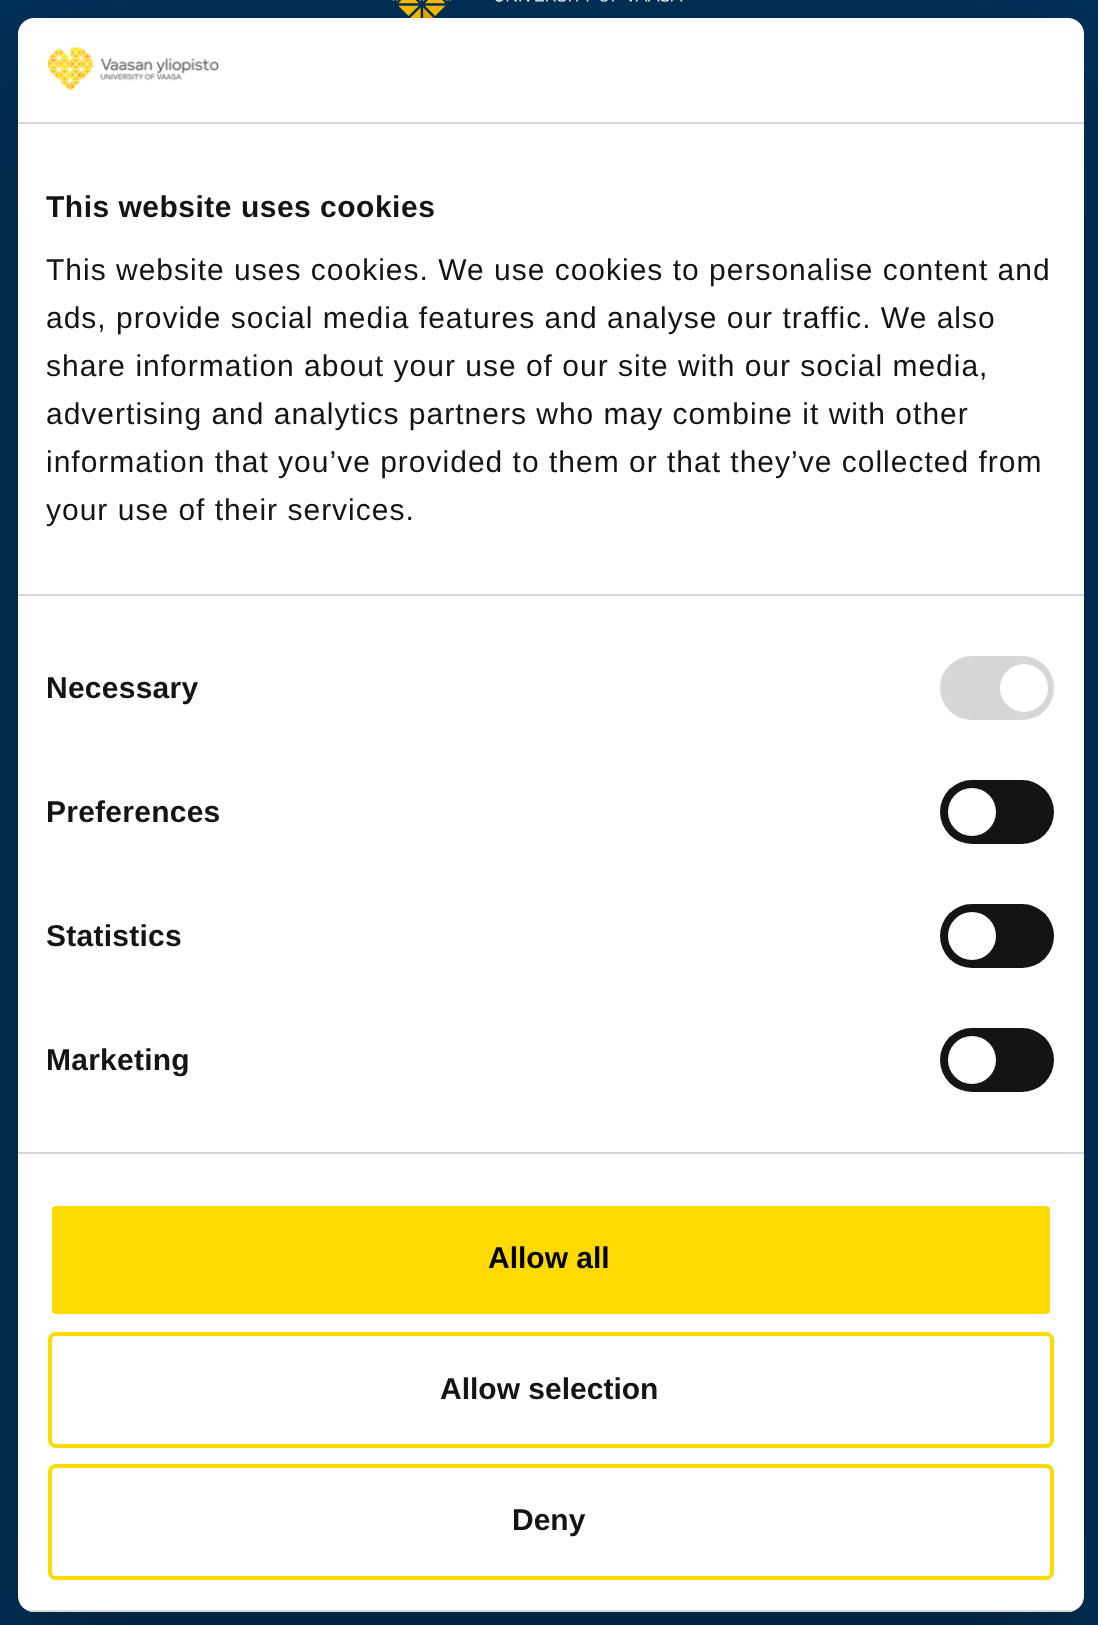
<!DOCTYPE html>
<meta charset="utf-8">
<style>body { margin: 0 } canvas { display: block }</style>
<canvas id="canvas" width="1098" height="1625"></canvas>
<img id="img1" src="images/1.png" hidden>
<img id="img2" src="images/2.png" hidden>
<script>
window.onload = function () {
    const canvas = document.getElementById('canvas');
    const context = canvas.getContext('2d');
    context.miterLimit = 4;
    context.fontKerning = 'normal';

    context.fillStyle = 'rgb(0, 48, 87)';
    context.fillRect(0, 0, 1098, 1625);
    context.drawImage(document.getElementById('img1'), 392, 0, 291, 18);
    context.fillStyle = 'rgba(0, 0, 0, 0.3)';
    context.filter = 'blur(68px)';
    context.beginPath();
    context.roundRect(18, 82, 1066, 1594, 16);
    context.fill();
    context.filter = 'none';
    context.fillStyle = 'rgb(255, 255, 255)';
    context.beginPath();
    context.roundRect(18, 18, 1066, 1594, 16);
    context.fill();
    context.fillStyle = 'rgb(214, 214, 214)';
    context.fillRect(18, 122, 1066, 2);
    context.drawImage(document.getElementById('img2'), 47, 47, 173, 44);
    context.fillRect(18, 594, 1066, 2);
    context.fillRect(18, 1152, 1066, 2);
    context.beginPath();
    context.roundRect(940, 656, 114, 64, 32);
    context.fill();
    context.fillStyle = 'rgb(255, 255, 255)';
    context.beginPath();
    context.arc(1024, 688, 24, 0, 2 * Math.PI);
    context.fill();
    context.fillStyle = 'rgb(20, 20, 20)';
    context.beginPath();
    context.roundRect(940, 780, 114, 64, 32);
    context.fill();
    context.fillStyle = 'rgb(255, 255, 255)';
    context.beginPath();
    context.arc(972, 812, 24, 0, 2 * Math.PI);
    context.fill();
    context.fillStyle = 'rgb(20, 20, 20)';
    context.beginPath();
    context.roundRect(940, 904, 114, 64, 32);
    context.fill();
    context.fillStyle = 'rgb(255, 255, 255)';
    context.beginPath();
    context.arc(972, 936, 24, 0, 2 * Math.PI);
    context.fill();
    context.fillStyle = 'rgb(20, 20, 20)';
    context.beginPath();
    context.roundRect(940, 1028, 114, 64, 32);
    context.fill();
    context.fillStyle = 'rgb(255, 255, 255)';
    context.beginPath();
    context.arc(972, 1060, 24, 0, 2 * Math.PI);
    context.fill();
    context.save();
    context.beginPath();
    context.roundRect(18, 18, 1066, 1594, 16);
    context.clip();
    context.fillStyle = 'rgb(214, 214, 214)';
    context.fillRect(18, 1610, 1066, 2);
    context.restore();
    context.fillStyle = 'rgb(255, 218, 0)';
    context.beginPath();
    context.roundRect(50, 1204, 1002, 112, 6);
    context.fill();
    context.strokeStyle = 'rgb(255, 255, 255)';
    context.lineWidth = 4;
    context.stroke();
    context.beginPath();
    context.roundRect(50, 1334, 1002, 112, 6);
    context.strokeStyle = 'rgb(255, 218, 0)';
    context.stroke();
    context.beginPath();
    context.roundRect(50, 1466, 1002, 112, 6);
    context.stroke();
    context.letterSpacing = '0.5px';
    context.font = 'bold 30px Liberation Sans';
    context.fillStyle = 'rgb(20, 20, 20)';
    context.fillText('This website uses cookies', 46, 217);
    context.letterSpacing = '1px';
    context.font = '30px Liberation Sans';
    context.fillText('This website uses cookies. We use cookies to personalise content and', 46, 280);
    context.fillText('ads, provide social media features and analyse our traffic. We also', 46, 328);
    context.fillText('share information about your use of our site with our social media,', 46, 376);
    context.fillText('advertising and analytics partners who may combine it with other', 46, 424);
    context.fillText('information that you’ve provided to them or that they’ve collected from', 46, 472);
    context.fillText('your use of their services.', 46, 520);
    context.letterSpacing = '0.25px';
    context.font = 'bold 30px Liberation Sans';
    context.fillText('Necessary', 46, 698);
    context.fillText('Preferences', 46, 822);
    context.fillText('Statistics', 46, 946);
    context.fillText('Marketing', 46, 1070);
    context.letterSpacing = '0px';
    context.fillStyle = 'rgb(0, 0, 0)';
    context.fillText('Allow all', 488, 1268);
    context.fillStyle = 'rgb(20, 20, 20)';
    context.fillText('Allow selection', 440, 1399);
    context.fillText('Deny', 512, 1530);
};
</script>
